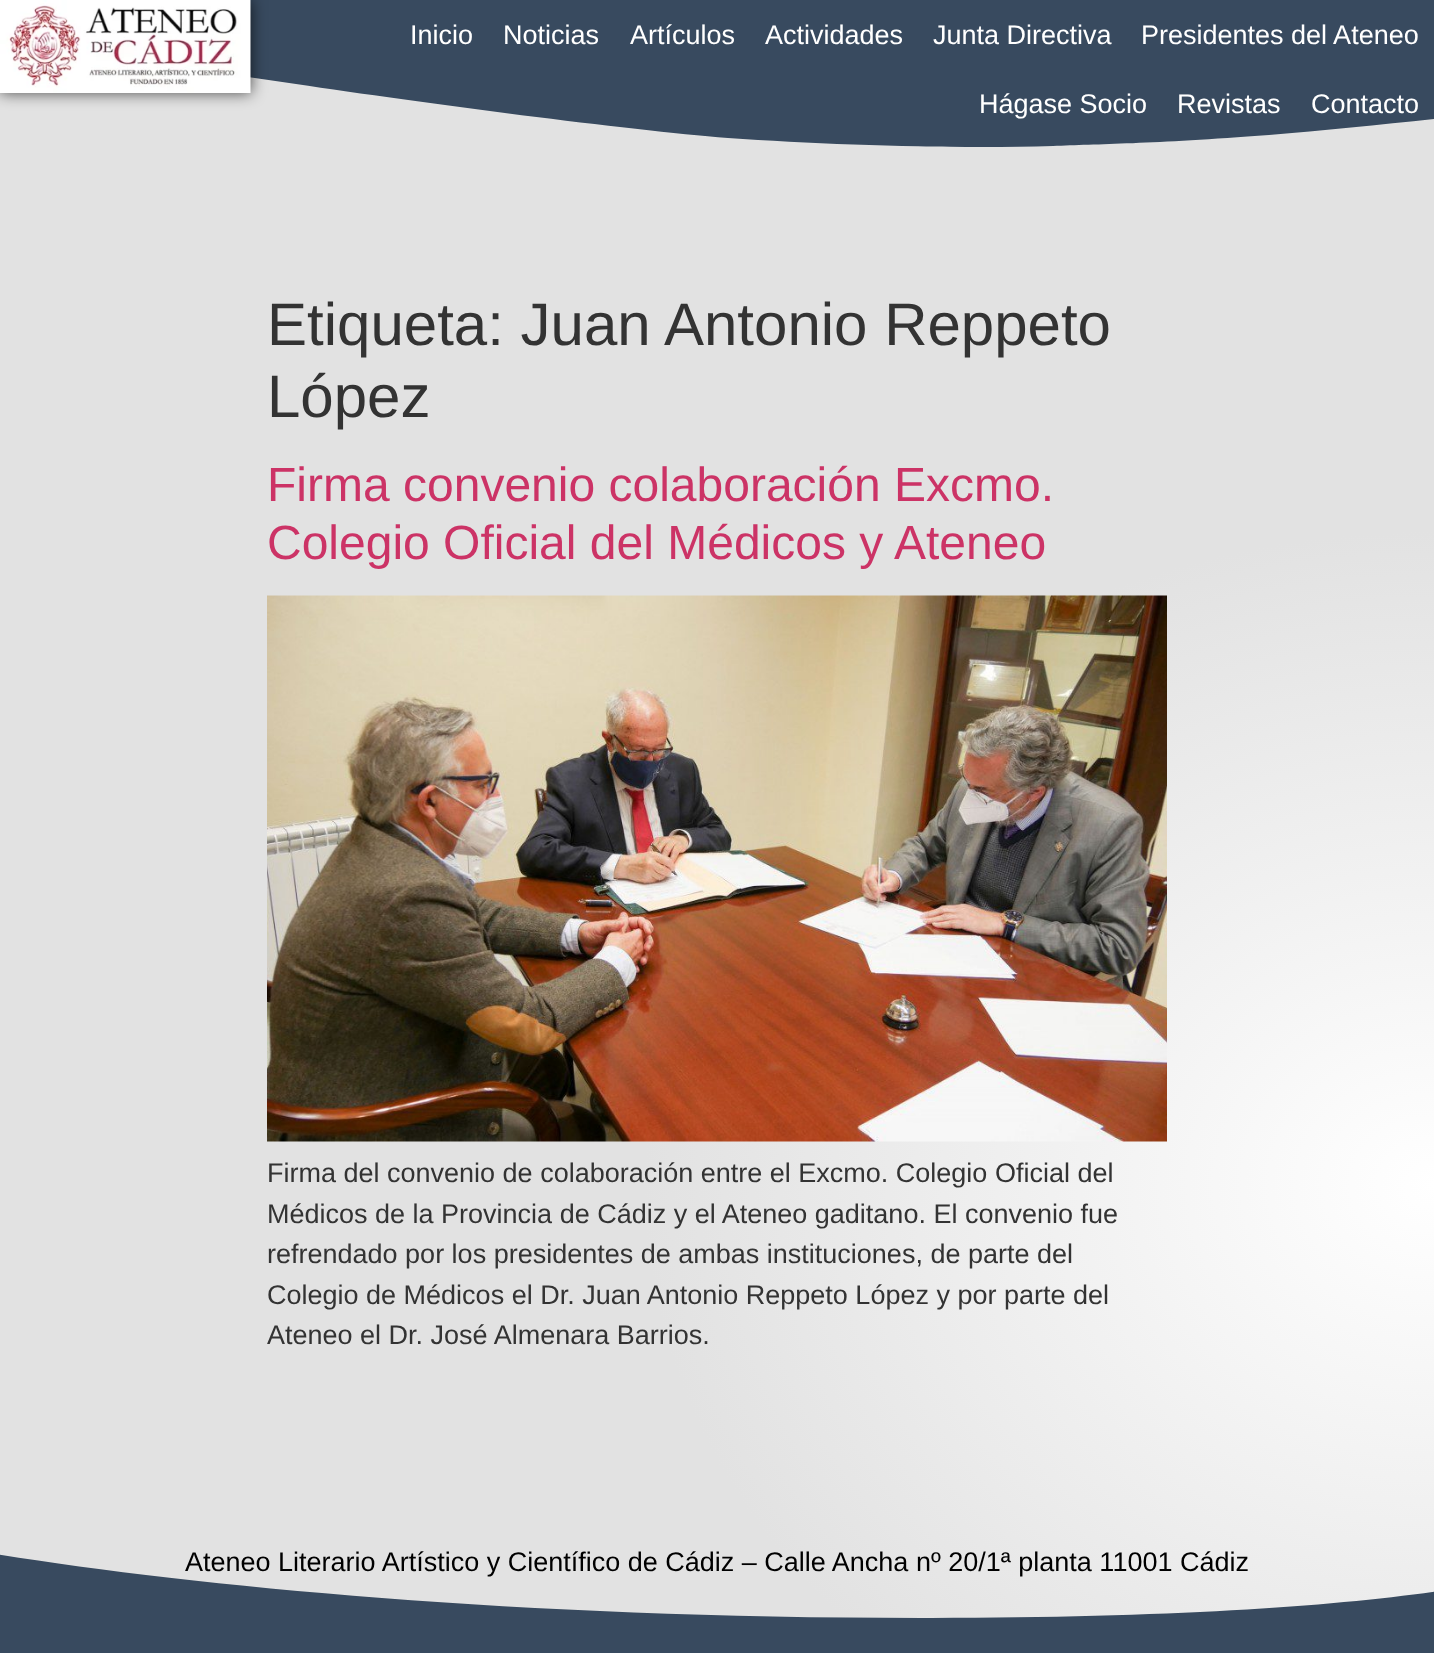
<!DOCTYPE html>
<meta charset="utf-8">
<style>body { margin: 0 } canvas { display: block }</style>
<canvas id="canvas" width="1434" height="1653"></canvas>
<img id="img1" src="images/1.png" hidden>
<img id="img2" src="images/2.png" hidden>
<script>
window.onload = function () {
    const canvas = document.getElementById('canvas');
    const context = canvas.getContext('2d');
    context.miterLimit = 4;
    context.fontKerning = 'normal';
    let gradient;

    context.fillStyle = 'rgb(255, 255, 255)';
    context.fillRect(0, 0, 1434, 1653);
    gradient = context.createRadialGradient(1434, 1433.88, 0, 1434, 1433.88, 2028);
    gradient.addColorStop(0, 'rgb(255, 255, 255)');
    gradient.addColorStop(0.39, 'rgb(226, 226, 226)');
    context.fillStyle = gradient;
    context.beginPath();
    context.rect(0, 77, 1434, 1541);
    context.save();
    context.clip();
    context.scale(1, 1676 / 2028);
    context.fillRect(0, 0, 1434, 2001);
    context.restore();
    context.fillStyle = 'rgb(56, 74, 95)';
    context.beginPath();
    context.moveTo(-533, 9);
    context.bezierCurveTo(-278, 17, -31, 36, 296, 84);
    context.bezierCurveTo(423, 103, 627, 130, 728, 138);
    context.bezierCurveTo(830, 145, 955, 149, 1053, 146);
    context.bezierCurveTo(1097, 144, 1150, 144, 1269, 135);
    context.bezierCurveTo(1386, 125, 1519, 110, 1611, 98);
    context.bezierCurveTo(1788, 74, 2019, 65, 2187, 64);
    context.bezierCurveTo(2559, 61, 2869, 110, 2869, 110);
    context.lineTo(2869, -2);
    context.lineTo(-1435, -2);
    context.lineTo(-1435, 51);
    context.bezierCurveTo(-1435, 51, -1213, 21, -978, 12);
    context.bezierCurveTo(-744, 3, -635, 6, -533, 9);
    context.closePath();
    context.fill();
    context.fillStyle = 'rgba(0, 0, 0, 0.67)';
    context.filter = 'blur(7.5px)';
    context.beginPath();
    context.rect(0, 0, 251, 93);
    context.fill();
    context.filter = 'none';
    context.drawImage(document.getElementById('img1'), 0, 0, 251, 93);
    context.drawImage(document.getElementById('img2'), 267, 595, 900, 547);
    context.fillStyle = 'rgb(56, 74, 95)';
    context.beginPath();
    context.moveTo(932, 1618);
    context.bezierCurveTo(232, 1619, -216, 1524, -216, 1502);
    context.lineTo(-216, 1622);
    context.lineTo(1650, 1622);
    context.lineTo(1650, 1502);
    context.bezierCurveTo(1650, 1525, 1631, 1617, 932, 1618);
    context.closePath();
    context.fill();
    context.fillRect(0, 1622, 1434, 31);
    context.font = '27px Liberation Sans';
    context.fillStyle = 'rgb(255, 255, 255)';
    context.fillText('Inicio', 410, 44);
    context.fillText('Noticias', 503, 44);
    context.fillText('Artículos', 630, 44);
    context.fillText('Actividades', 765, 44);
    context.fillText('Junta Directiva', 933, 44);
    context.fillText('Presidentes del Ateneo', 1141, 44);
    context.fillText('Hágase Socio', 979, 113);
    context.fillText('Revistas', 1177, 113);
    context.fillText('Contacto', 1311, 113);
    context.font = '60px Liberation Sans';
    context.fillStyle = 'rgb(51, 51, 51)';
    context.fillText('Etiqueta: Juan Antonio Reppeto', 267, 345);
    context.fillText('López', 267, 417);
    context.font = '48px Liberation Sans';
    context.fillStyle = 'rgb(204, 51, 102)';
    context.fillText('Firma convenio colaboración Excmo.', 267, 501);
    context.fillText('Colegio Oficial del Médicos y Ateneo', 267, 559);
    context.font = '27px Liberation Sans';
    context.fillStyle = 'rgb(51, 51, 51)';
    context.fillText('Firma del convenio de colaboración entre el Excmo. Colegio Oficial del', 267, 1182);
    context.fillText('Médicos de la Provincia de Cádiz y el Ateneo gaditano. El convenio fue', 267, 1223);
    context.fillText('refrendado por los presidentes de ambas instituciones, de parte del', 267, 1263);
    context.fillText('Colegio de Médicos el Dr. Juan Antonio Reppeto López y por parte del', 267, 1304);
    context.fillText('Ateneo el Dr. José Almenara Barrios.', 267, 1344);
    context.fillStyle = 'rgb(0, 0, 0)';
    context.fillText('Ateneo Literario Artístico y Científico de Cádiz – Calle Ancha nº 20/1ª planta 11001 Cádiz', 185, 1571);
};
</script>
